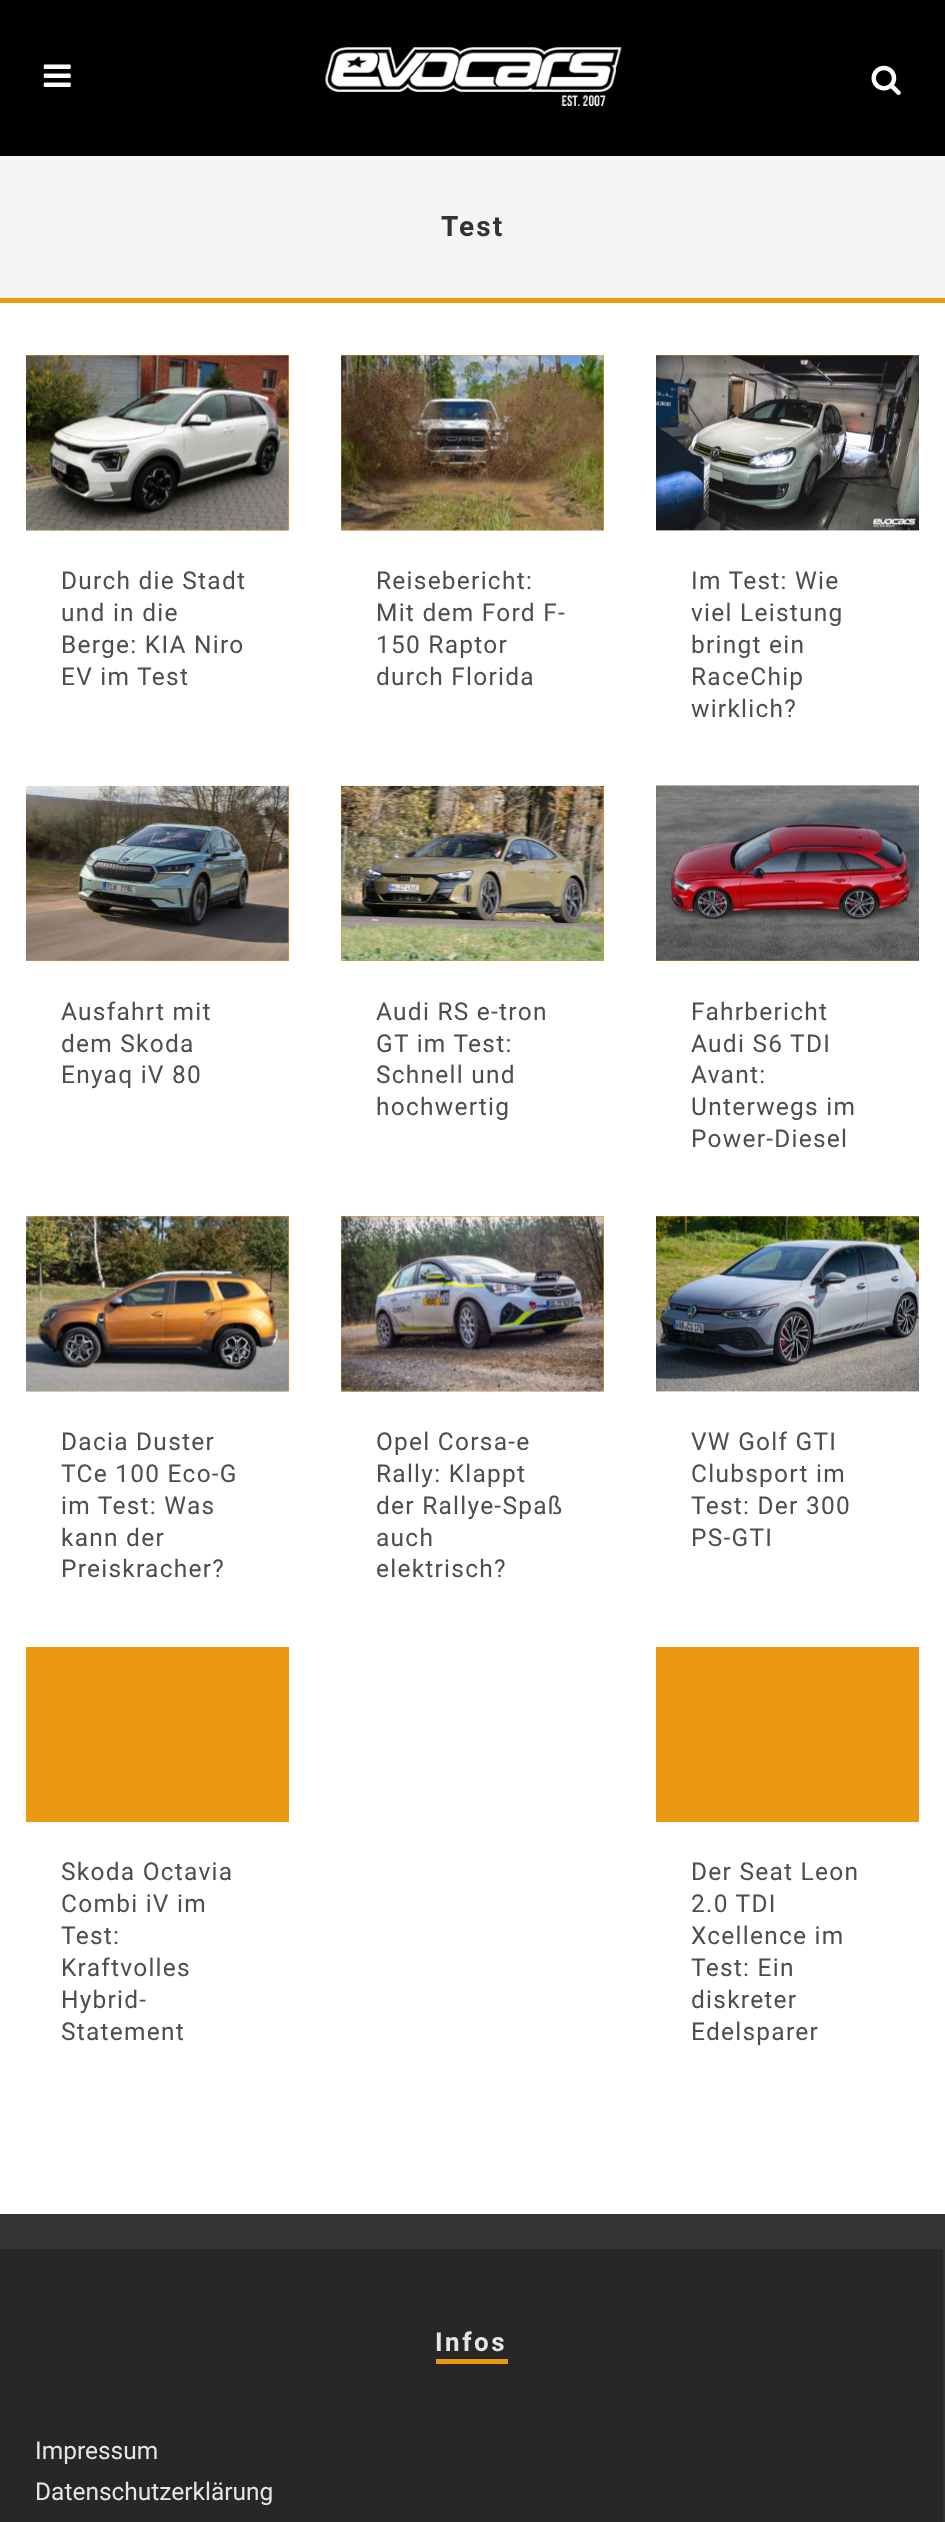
<!DOCTYPE html>
<meta charset="utf-8">
<style>body { margin: 0 } canvas { display: block }</style>
<canvas id="canvas" width="945" height="2522"></canvas>
<img id="img1" src="images/1.png" hidden>
<img id="img2" src="images/2.png" hidden>
<img id="img3" src="images/3.png" hidden>
<img id="img4" src="images/4.png" hidden>
<img id="img5" src="images/5.png" hidden>
<img id="img6" src="images/6.png" hidden>
<img id="img7" src="images/7.png" hidden>
<img id="img8" src="images/8.png" hidden>
<img id="img9" src="images/9.png" hidden>
<img id="img10" src="images/10.png" hidden>
<img id="img11" src="images/11.png" hidden>
<img id="img12" src="images/12.png" hidden>
<script>
window.onload = function () {
    const canvas = document.getElementById('canvas');
    const context = canvas.getContext('2d');
    context.miterLimit = 4;
    context.fontKerning = 'normal';

    context.fillStyle = 'rgb(255, 255, 255)';
    context.fillRect(0, 0, 945, 2522);
    context.fillStyle = 'rgb(0, 0, 0)';
    context.fillRect(0, 0, 945, 156);
    context.drawImage(document.getElementById('img1'), 43, 64, 28, 23);
    context.drawImage(document.getElementById('img2'), 325, 47, 297, 60);
    context.drawImage(document.getElementById('img3'), 871, 65, 30, 30);
    context.fillStyle = 'rgb(245, 245, 245)';
    context.fillRect(0, 156, 945, 142);
    context.fillStyle = 'rgb(235, 152, 18)';
    context.fillRect(0, 298, 945, 5);
    context.fillRect(26, 355, 263, 175);
    context.drawImage(document.getElementById('img4'), 26, 354, 264, 177);
    context.fillRect(341, 355, 263, 175);
    context.drawImage(document.getElementById('img5'), 341, 354, 263, 177);
    context.fillRect(656, 355, 263, 1);
    context.drawImage(document.getElementById('img6'), 656, 355, 263, 176);
    context.fillRect(26, 786, 263, 175);
    context.drawImage(document.getElementById('img7'), 26, 785, 264, 176);
    context.fillRect(341, 786, 263, 175);
    context.drawImage(document.getElementById('img8'), 341, 785, 263, 176);
    context.fillRect(656, 786, 263, 175);
    context.drawImage(document.getElementById('img9'), 656, 785, 263, 176);
    context.fillRect(26, 1216, 263, 175);
    context.drawImage(document.getElementById('img10'), 26, 1215, 264, 177);
    context.fillRect(341, 1216, 263, 175);
    context.drawImage(document.getElementById('img11'), 341, 1215, 263, 177);
    context.fillRect(656, 1216, 263, 1);
    context.drawImage(document.getElementById('img12'), 656, 1216, 263, 176);
    context.fillRect(26, 1647, 263, 175);
    context.fillRect(656, 1647, 263, 175);
    context.fillStyle = 'rgb(51, 51, 51)';
    context.fillRect(0, 2214, 945, 35);
    context.fillStyle = 'rgb(39, 39, 39)';
    context.fillRect(0, 2249, 943, 273);
    context.fillStyle = 'rgb(51, 51, 51)';
    context.fillRect(943, 2249, 2, 273);
    context.fillStyle = 'rgb(235, 152, 18)';
    context.fillRect(436, 2359, 72, 5);
    context.letterSpacing = '2px';
    context.font = 'bold 28px Roboto';
    context.fillStyle = 'rgb(51, 51, 51)';
    context.fillText('Test', 441, 236);
    context.letterSpacing = '1.25px';
    context.font = '24.5px Roboto';
    context.fillStyle = 'rgb(77, 77, 77)';
    context.fillText('Durch die Stadt', 61, 589);
    context.fillText('und in die', 61, 621);
    context.fillText('Berge: KIA Niro', 61, 653);
    context.fillText('EV im Test', 61, 685);
    context.fillText('Reisebericht:', 376, 589);
    context.fillText('Mit dem Ford F-', 376, 621);
    context.fillText('150 Raptor', 376, 653);
    context.fillText('durch Florida', 376, 685);
    context.fillText('Im Test: Wie', 691, 589);
    context.fillText('viel Leistung', 691, 621);
    context.fillText('bringt ein', 691, 653);
    context.fillText('RaceChip', 691, 685);
    context.fillText('wirklich?', 691, 717);
    context.fillText('Ausfahrt mit', 61, 1020);
    context.fillText('dem Skoda', 61, 1052);
    context.fillText('Enyaq iV 80', 61, 1083);
    context.fillText('Audi RS e-tron', 376, 1020);
    context.fillText('GT im Test:', 376, 1052);
    context.fillText('Schnell und', 376, 1083);
    context.fillText('hochwertig', 376, 1115);
    context.fillText('Fahrbericht', 691, 1020);
    context.fillText('Audi S6 TDI', 691, 1052);
    context.fillText('Avant:', 691, 1083);
    context.fillText('Unterwegs im', 691, 1115);
    context.fillText('Power-Diesel', 691, 1147);
    context.fillText('Dacia Duster', 61, 1450);
    context.fillText('TCe 100 Eco-G', 61, 1482);
    context.fillText('im Test: Was', 61, 1514);
    context.fillText('kann der', 61, 1546);
    context.fillText('Preiskracher?', 61, 1577);
    context.fillText('Opel Corsa-e', 376, 1450);
    context.fillText('Rally: Klappt', 376, 1482);
    context.fillText('der Rallye-Spaß', 376, 1514);
    context.fillText('auch', 376, 1546);
    context.fillText('elektrisch?', 376, 1577);
    context.fillText('VW Golf GTI', 691, 1450);
    context.fillText('Clubsport im', 691, 1482);
    context.fillText('Test: Der 300', 691, 1514);
    context.fillText('PS-GTI', 691, 1546);
    context.fillText('Skoda Octavia', 61, 1880);
    context.fillText('Combi iV im', 61, 1912);
    context.fillText('Test:', 61, 1944);
    context.fillText('Kraftvolles', 61, 1976);
    context.fillText('Hybrid-', 61, 2008);
    context.fillText('Statement', 61, 2040);
    context.fillText('Der Seat Leon', 691, 1880);
    context.fillText('2.0 TDI', 691, 1912);
    context.fillText('Xcellence im', 691, 1944);
    context.fillText('Test: Ein', 691, 1976);
    context.fillText('diskreter', 691, 2008);
    context.fillText('Edelsparer', 691, 2040);
    context.letterSpacing = '2.5px';
    context.font = 'bold 26px Roboto';
    context.fillStyle = 'rgb(229, 229, 229)';
    context.fillText('Infos', 435, 2351);
    context.letterSpacing = '0px';
    context.font = '24.5px Roboto';
    context.fillText('Impressum', 35, 2459);
    context.fillText('Datenschutzerklärung', 35, 2500);
};
</script>
